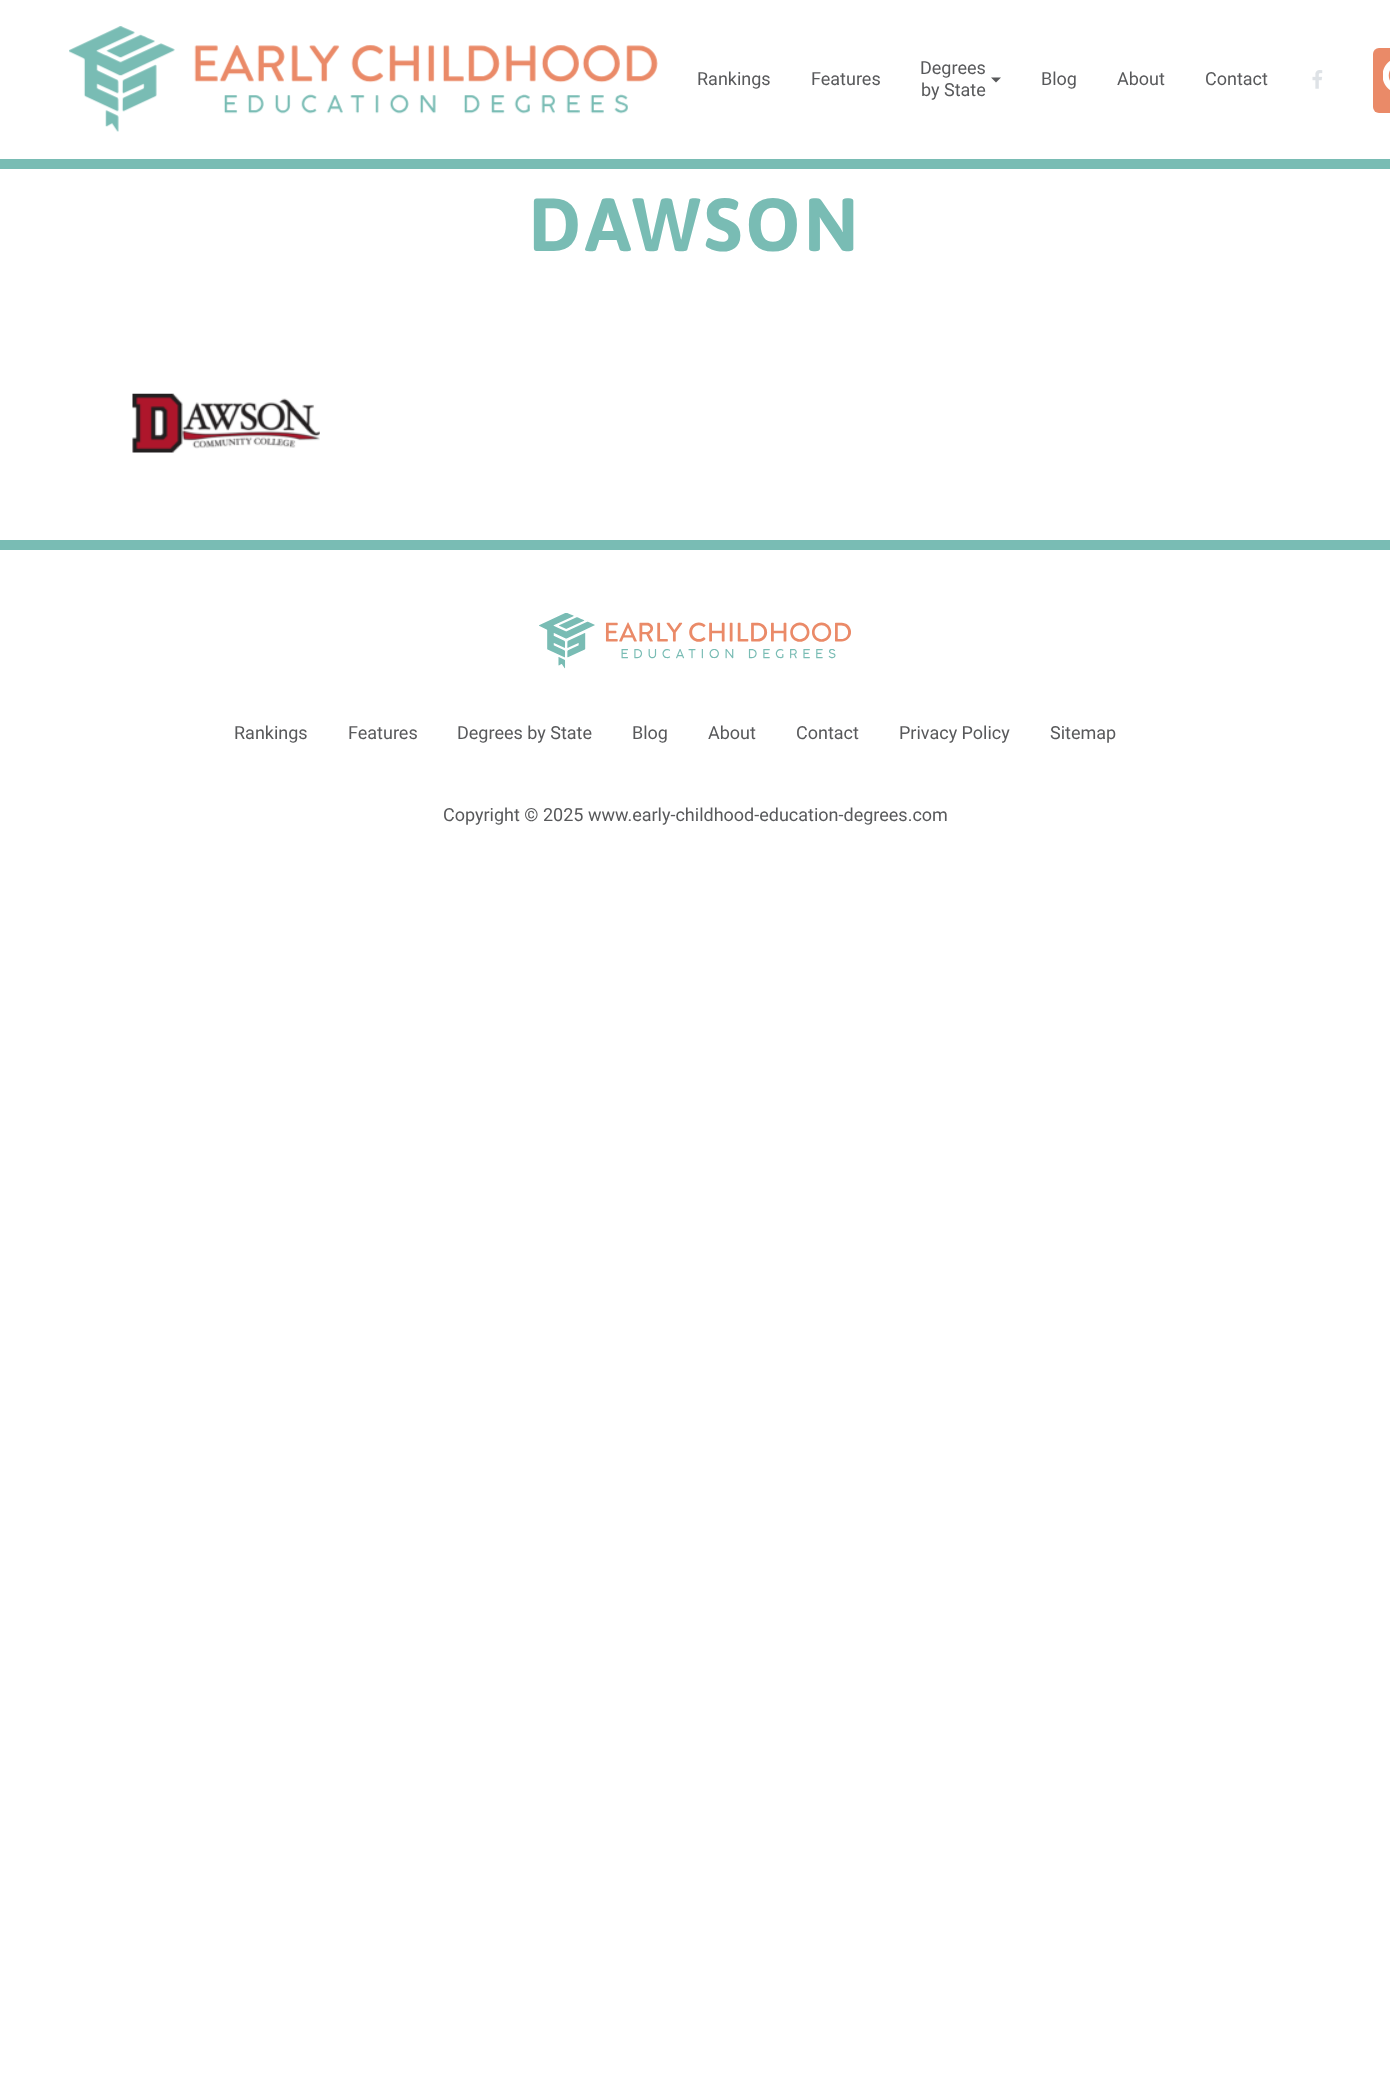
<!DOCTYPE html>
<meta charset="utf-8">
<style>body { margin: 0 } canvas { display: block }</style>
<canvas id="canvas" width="1390" height="2079"></canvas>
<img id="img1" src="images/1.png" hidden>
<img id="img2" src="images/2.png" hidden>
<img id="img3" src="images/3.png" hidden>
<img id="img4" src="images/4.png" hidden>
<img id="img5" src="images/5.png" hidden>
<script>
window.onload = function () {
    const canvas = document.getElementById('canvas');
    const context = canvas.getContext('2d');
    context.miterLimit = 4;
    context.fontKerning = 'normal';

    context.fillStyle = 'rgb(255, 255, 255)';
    context.fillRect(0, 0, 1390, 2079);
    context.fillStyle = 'rgb(121, 188, 180)';
    context.fillRect(0, 159, 1390, 10);
    context.drawImage(document.getElementById('img1'), 69, 26, 589, 106);
    context.fillStyle = 'rgb(88, 89, 91)';
    context.beginPath();
    context.moveTo(991, 77.5);
    context.lineTo(1001, 77.5);
    context.lineTo(996, 82.5);
    context.closePath();
    context.fill();
    context.drawImage(document.getElementById('img2'), 1312, 70, 11, 19);
    context.fillStyle = 'rgb(234, 138, 104)';
    context.beginPath();
    context.roundRect(1373, 48, 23, 65, 6);
    context.fill();
    context.drawImage(document.getElementById('img3'), 1383, 61, 7, 29);
    context.drawImage(document.getElementById('img4'), 132, 393, 188, 60);
    context.fillStyle = 'rgb(121, 188, 180)';
    context.fillRect(0, 540, 1390, 10);
    context.drawImage(document.getElementById('img5'), 539, 613, 312, 56);
    context.font = '18px Roboto';
    context.fillStyle = 'rgb(88, 89, 91)';
    context.fillText('Rankings', 697, 85);
    context.fillText('Features', 811, 85);
    context.fillText('Degrees', 920, 74);
    context.fillText('by State', 921, 96);
    context.fillText('Blog', 1041, 85);
    context.fillText('About', 1117, 85);
    context.fillText('Contact', 1205, 85);
    context.letterSpacing = '3.75px';
    context.font = 'bold 75px Asap';
    context.fillStyle = 'rgb(121, 188, 180)';
    context.fillText('DAWSON', 529, 251);
    context.letterSpacing = '0px';
    context.font = '18px Roboto';
    context.fillStyle = 'rgb(88, 89, 91)';
    context.fillText('Rankings', 234, 739);
    context.fillText('Features', 348, 739);
    context.fillText('Degrees by State', 457, 739);
    context.fillText('Blog', 632, 739);
    context.fillText('About', 708, 739);
    context.fillText('Contact', 796, 739);
    context.fillText('Privacy Policy', 899, 739);
    context.fillText('Sitemap', 1050, 739);
    context.fillText('Copyright © 2025 www.early-childhood-education-degrees.com', 443, 821);
};
</script>
